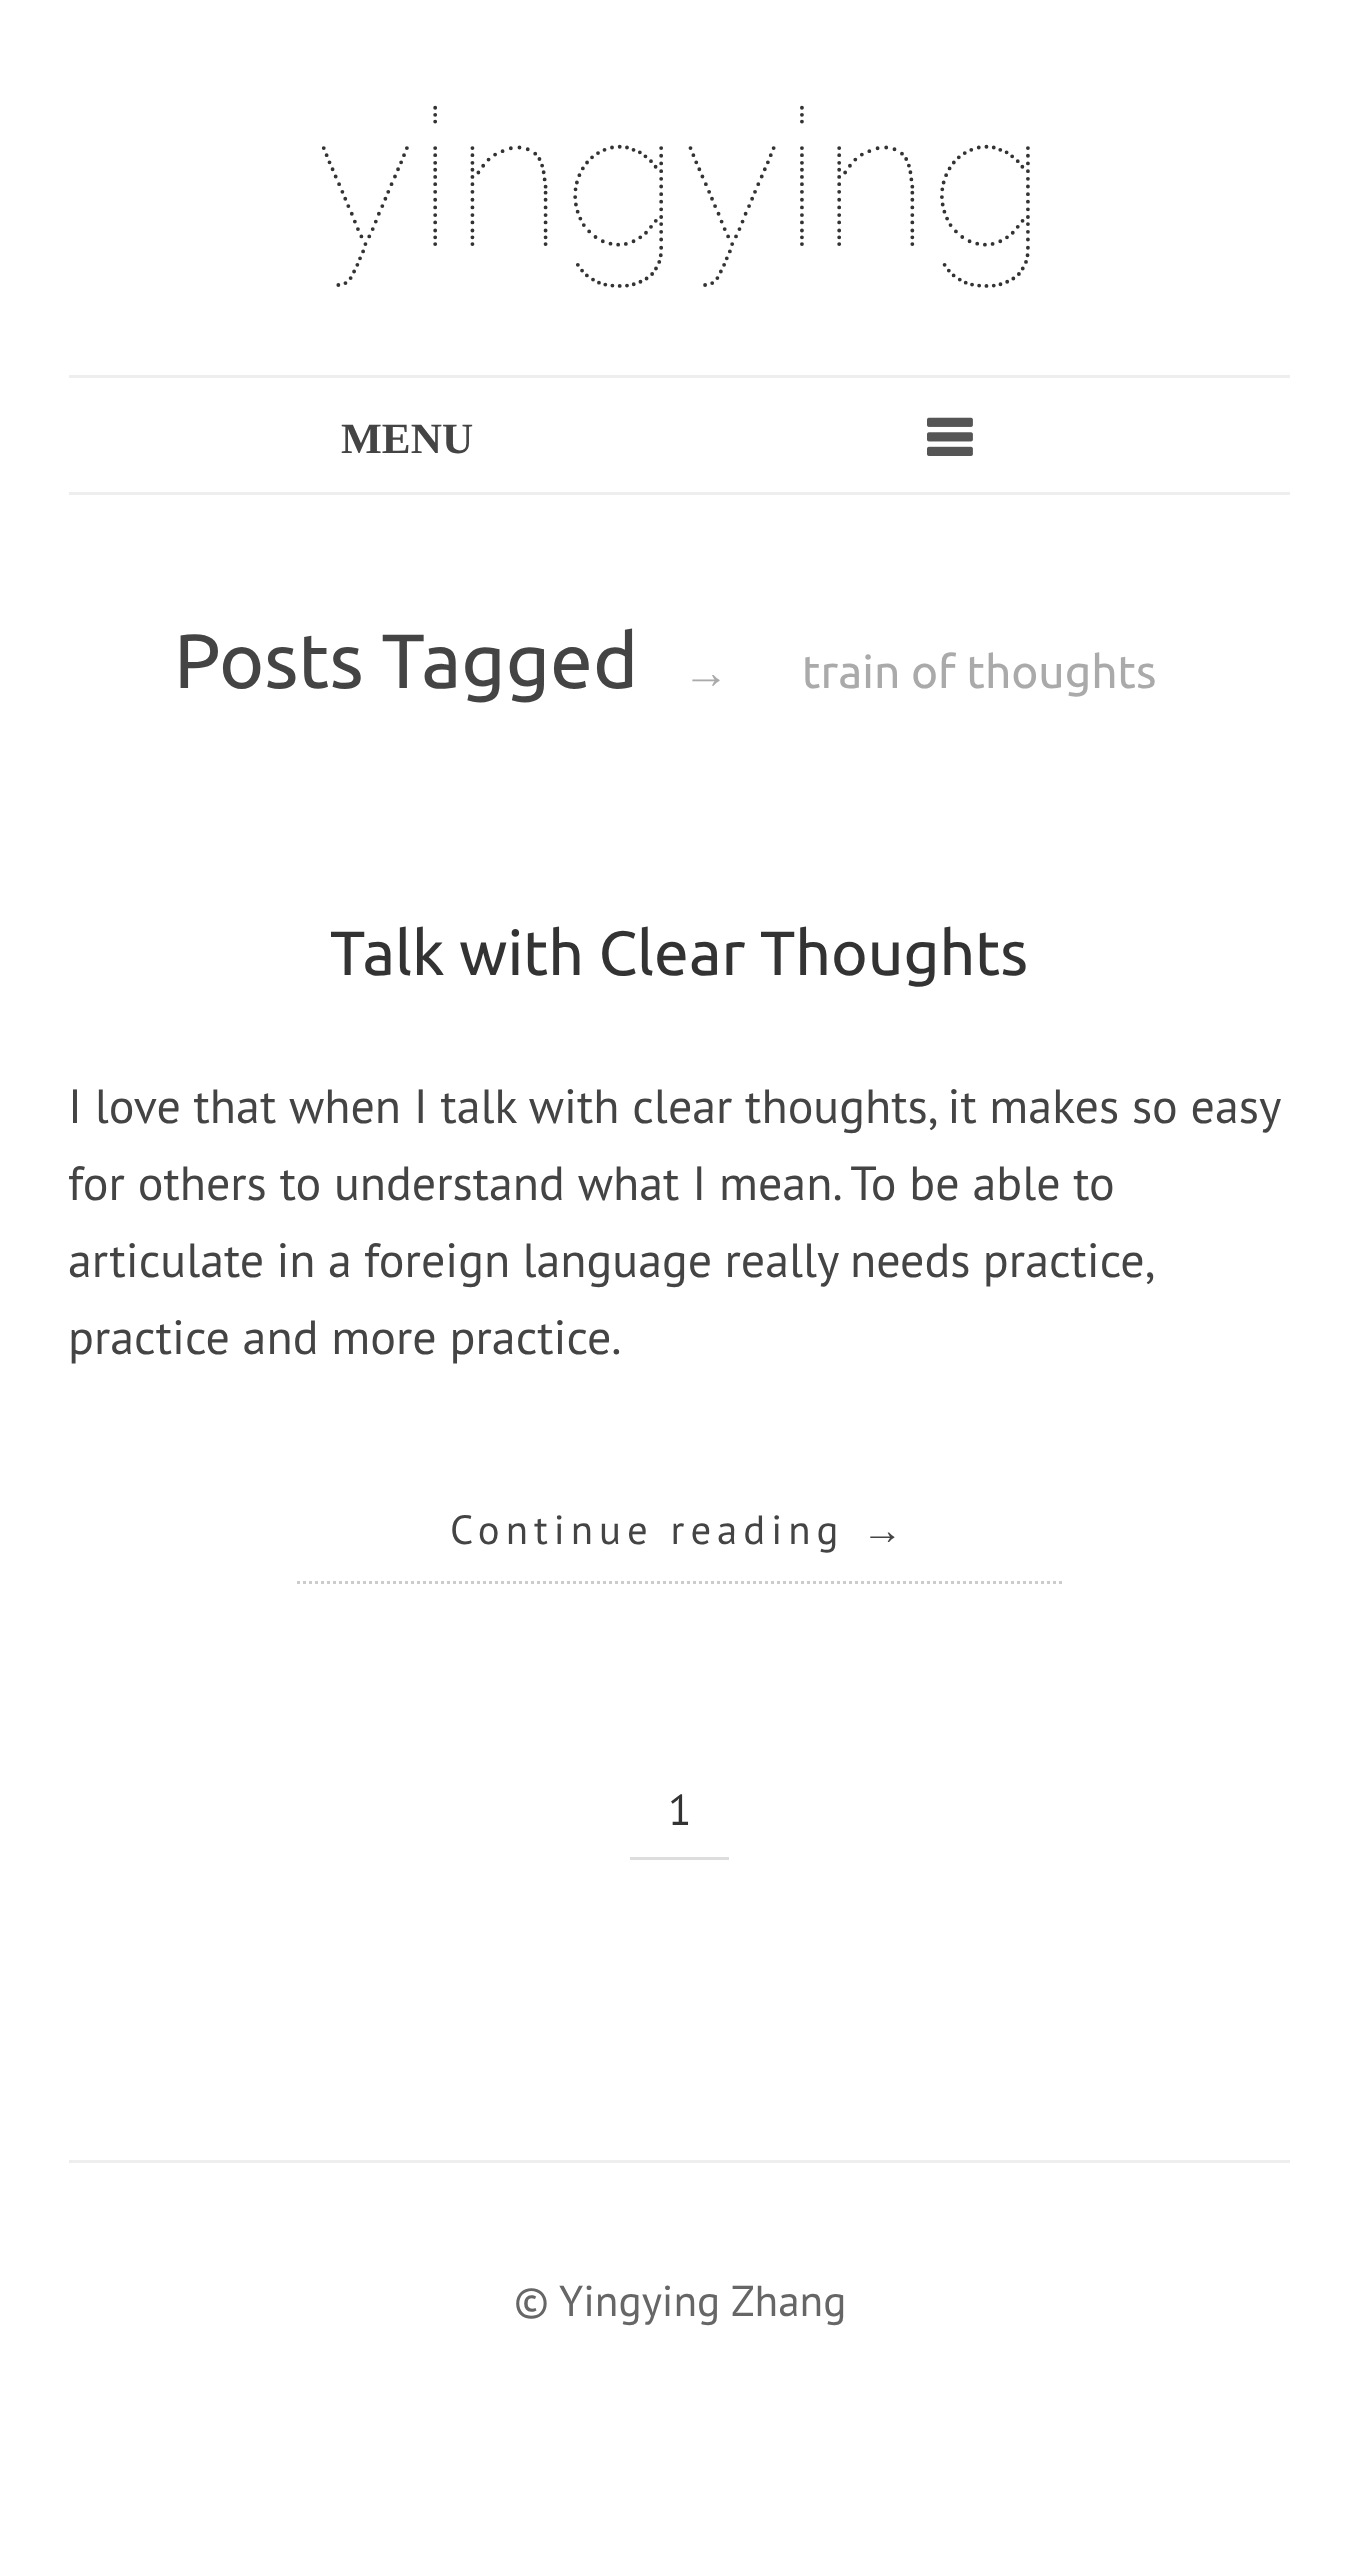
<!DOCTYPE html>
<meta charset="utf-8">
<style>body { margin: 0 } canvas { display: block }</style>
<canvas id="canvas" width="1357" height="2561"></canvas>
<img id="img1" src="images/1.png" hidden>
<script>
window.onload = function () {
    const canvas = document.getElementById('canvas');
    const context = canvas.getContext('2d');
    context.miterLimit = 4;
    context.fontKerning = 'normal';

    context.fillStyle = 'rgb(255, 255, 255)';
    context.fillRect(0, 0, 1357, 2561);
    context.fillStyle = 'rgb(238, 238, 238)';
    context.fillRect(69, 375, 1221, 3);
    context.fillRect(69, 492, 1221, 3);
    context.drawImage(document.getElementById('img1'), 927, 417, 46, 39);
    context.beginPath();
    context.moveTo(297, 1582.5);
    context.lineTo(1062, 1582.5);
    context.strokeStyle = 'rgb(204, 204, 204)';
    context.lineWidth = 3;
    context.setLineDash([3, 3]);
    context.stroke();
    context.fillStyle = 'rgb(221, 221, 221)';
    context.fillRect(630, 1857, 99, 3);
    context.fillStyle = 'rgb(238, 238, 238)';
    context.fillRect(69, 2160, 1221, 3);
    context.font = '192px Raleway Dots';
    context.fillStyle = 'rgb(51, 51, 51)';
    context.fillText('yingying', 313, 246);
    context.font = 'bold 43.25px Liberation Serif';
    context.fillStyle = 'rgb(68, 68, 68)';
    context.fillText('MENU', 341, 453);
    context.font = '76.75px Ubuntu';
    context.fillText('Posts Tagged', 174, 688);
    context.font = '46px Liberation Serif';
    context.fillStyle = 'rgb(170, 170, 170)';
    context.fillText('→', 683, 688);
    context.font = '46px Ubuntu';
    context.fillText('train of thoughts', 802, 688);
    context.font = '62.4px Ubuntu';
    context.fillStyle = 'rgb(51, 51, 51)';
    context.fillText('Talk with Clear Thoughts', 330, 975);
    context.wordSpacing = '-0.1px';
    context.font = '48px PT Sans';
    context.fillStyle = 'rgb(68, 68, 68)';
    context.fillText('I love that when I talk with clear thoughts, it makes so easy', 68, 1123);
    context.wordSpacing = '0px';
    context.fillText('for others to understand what I mean. To be able to', 68, 1200);
    context.wordSpacing = '-0.5px';
    context.fillText('articulate in a foreign language really needs practice,', 68, 1277);
    context.wordSpacing = '0px';
    context.fillText('practice and more practice.', 68, 1354);
    context.letterSpacing = '6px';
    context.font = '40.75px PT Sans';
    context.fillText('Continue reading', 450, 1544);
    context.font = '40.75px Liberation Serif';
    context.fillText('→', 862, 1544);
    context.letterSpacing = '0px';
    context.font = '43.25px PT Sans';
    context.fillStyle = 'rgb(51, 51, 51)';
    context.fillText('1', 668, 1825);
    context.fillStyle = 'rgb(102, 102, 102)';
    context.fillText('© Yingying Zhang', 514, 2316);
};
</script>
